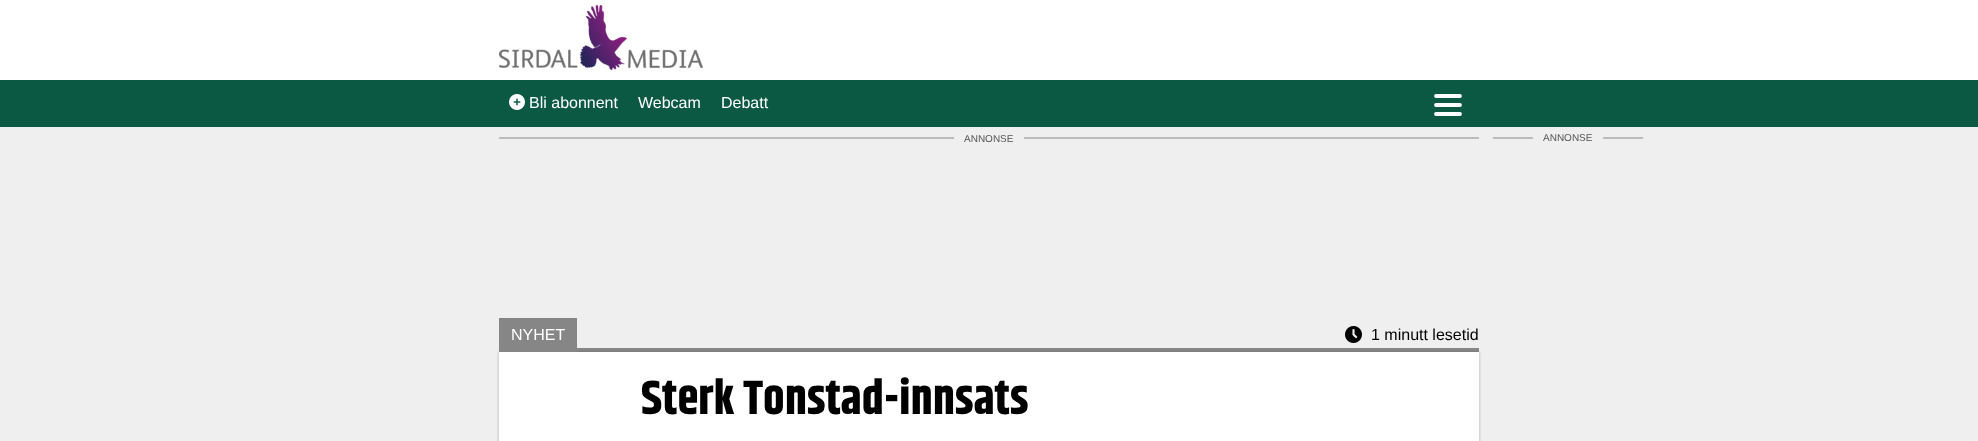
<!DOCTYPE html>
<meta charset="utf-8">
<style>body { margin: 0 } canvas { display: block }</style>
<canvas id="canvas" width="1978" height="441"></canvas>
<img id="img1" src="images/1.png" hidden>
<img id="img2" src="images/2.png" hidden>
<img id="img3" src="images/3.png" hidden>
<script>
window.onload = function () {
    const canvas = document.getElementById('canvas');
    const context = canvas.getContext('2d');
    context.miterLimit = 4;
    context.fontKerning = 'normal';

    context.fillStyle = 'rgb(255, 255, 255)';
    context.fillRect(0, 0, 1978, 441);
    context.drawImage(document.getElementById('img1'), 499, 5, 204, 65);
    context.fillStyle = 'rgb(12, 89, 67)';
    context.fillRect(0, 80, 1978, 47);
    context.drawImage(document.getElementById('img2'), 509, 94, 16, 16);
    context.beginPath();
    context.moveTo(1436, 96);
    context.lineTo(1460, 96);
    context.moveTo(1436, 105);
    context.lineTo(1460, 105);
    context.moveTo(1436, 114);
    context.lineTo(1460, 114);
    context.strokeStyle = 'rgb(255, 255, 255)';
    context.lineWidth = 3.8;
    context.lineCap = 'round';
    context.lineJoin = 'round';
    context.stroke();
    context.fillStyle = 'rgb(239, 239, 239)';
    context.fillRect(0, 127, 1978, 314);
    context.fillStyle = 'rgb(187, 187, 187)';
    context.fillRect(499, 137, 455, 2);
    context.fillRect(1024, 137, 455, 2);
    context.fillRect(1493, 137, 40, 2);
    context.fillRect(1603, 137, 40, 2);
    context.fillStyle = 'rgb(134, 134, 134)';
    context.fillRect(577, 348, 902, 4);
    context.fillStyle = 'rgba(0, 0, 0, 0.15)';
    context.filter = 'blur(1px)';
    context.beginPath();
    context.rect(498, 352, 982, 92);
    context.fill();
    context.filter = 'none';
    context.fillStyle = 'rgb(134, 134, 134)';
    context.fillRect(499, 318, 78, 34);
    context.drawImage(document.getElementById('img3'), 1345, 326, 17, 17);
    context.fillStyle = 'rgb(255, 255, 255)';
    context.fillRect(499, 352, 980, 89);
    context.font = '16px Liberation Sans';
    context.fillText('Bli abonnent', 529, 108);
    context.fillText('Webcam', 638, 108);
    context.fillText('Debatt', 721, 108);
    context.font = '10px Liberation Sans';
    context.fillStyle = 'rgb(85, 85, 85)';
    context.fillText('ANNONSE', 964, 142);
    context.fillText('ANNONSE', 1543, 141);
    context.font = '16px Liberation Sans';
    context.fillStyle = 'rgb(255, 255, 255)';
    context.fillText('NYHET', 511, 340);
    context.fillStyle = 'rgb(0, 0, 0)';
    context.fillText('1 minutt lesetid', 1371, 340);
    context.font = 'bold 48px Khand';
    context.fillText('Sterk Tonstad-innsats', 641, 414);
};
</script>
